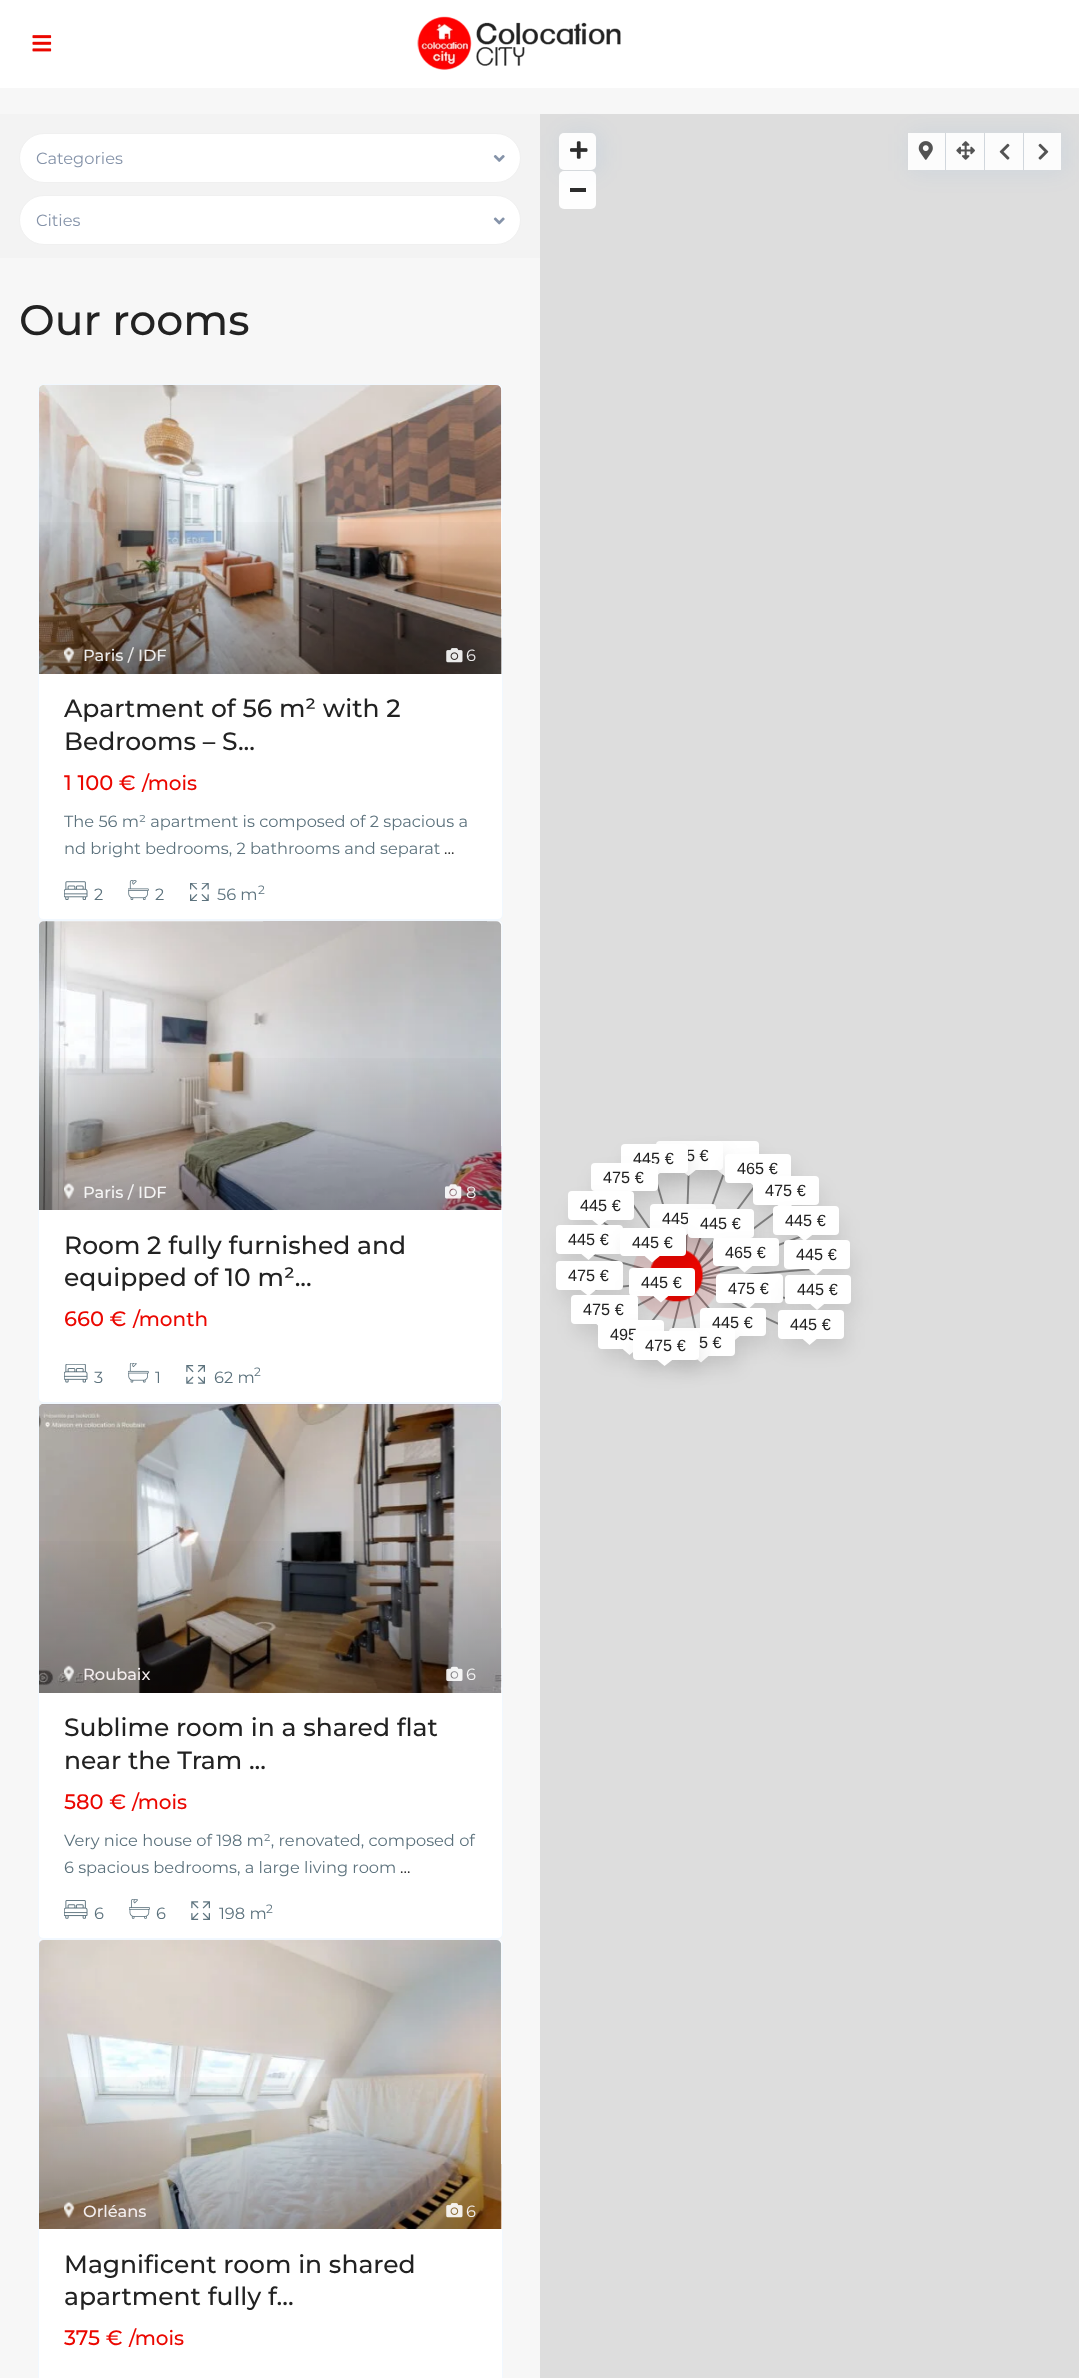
<!DOCTYPE html>
<meta charset="utf-8">
<style>body { margin: 0 } canvas { display: block }</style>
<canvas id="canvas" width="1079" height="2378"></canvas>
<img id="img1" src="images/1.png" hidden>
<img id="img2" src="images/2.png" hidden>
<img id="img3" src="images/3.png" hidden>
<img id="img4" src="images/4.png" hidden>
<img id="img5" src="images/5.png" hidden>
<img id="img6" src="images/6.png" hidden>
<img id="img7" src="images/7.png" hidden>
<img id="img8" src="images/8.png" hidden>
<img id="img9" src="images/9.png" hidden>
<img id="img10" src="images/10.png" hidden>
<img id="img11" src="images/11.png" hidden>
<img id="img12" src="images/12.png" hidden>
<img id="img13" src="images/13.png" hidden>
<img id="img14" src="images/14.png" hidden>
<img id="img15" src="images/15.png" hidden>
<img id="img16" src="images/16.png" hidden>
<img id="img17" src="images/17.png" hidden>
<img id="img18" src="images/18.png" hidden>
<img id="img19" src="images/19.png" hidden>
<img id="img20" src="images/20.png" hidden>
<img id="img21" src="images/21.png" hidden>
<img id="img22" src="images/22.png" hidden>
<img id="img23" src="images/23.png" hidden>
<img id="img24" src="images/24.png" hidden>
<img id="img25" src="images/25.png" hidden>
<img id="img26" src="images/26.png" hidden>
<img id="img27" src="images/27.png" hidden>
<img id="img28" src="images/28.png" hidden>
<img id="img29" src="images/29.png" hidden>
<img id="img30" src="images/30.png" hidden>
<img id="img31" src="images/32.png" hidden>
<img id="img32" src="images/31.png" hidden>
<script>
window.onload = function () {
    const canvas = document.getElementById('canvas');
    const context = canvas.getContext('2d');
    context.miterLimit = 4;
    context.fontKerning = 'normal';
    let gradient;

    context.fillStyle = 'rgb(247, 247, 247)';
    context.fillRect(0, 0, 1079, 2378);
    context.fillStyle = 'rgb(255, 255, 255)';
    context.fillRect(0, 0, 1079, 88);
    context.drawImage(document.getElementById('img1'), 32, 35, 20, 17);
    context.drawImage(document.getElementById('img2'), 417, 16, 204, 54);
    context.fillStyle = 'rgb(221, 221, 221)';
    context.fillRect(540, 114, 539, 2264);
    context.fillStyle = 'rgba(0, 110, 225, 0.08)';
    context.filter = 'blur(12.5px)';
    context.beginPath();
    context.roundRect(563, 134, 37, 37, 5);
    context.fill();
    context.filter = 'none';
    context.fillStyle = 'rgb(243, 243, 243)';
    context.fillRect(0, 114, 540, 144);
    context.fillStyle = 'rgb(255, 255, 255)';
    context.beginPath();
    context.roundRect(19.5, 133.5, 501, 49, 24.5);
    context.fill();
    context.strokeStyle = 'rgb(240, 240, 240)';
    context.stroke();
    context.drawImage(document.getElementById('img3'), 493, 155, 12, 7);
    context.beginPath();
    context.roundRect(19.5, 195.5, 501, 49, 24.5);
    context.fill();
    context.stroke();
    context.drawImage(document.getElementById('img4'), 493, 217, 12, 8);
    context.beginPath();
    context.roundRect(38.5, 384.5, 464, 535, 4.5);
    context.fill();
    context.strokeStyle = 'rgb(241, 248, 255)';
    context.stroke();
    context.drawImage(document.getElementById('img5'), 39, 385, 463, 289);
    gradient = context.createLinearGradient(270, 674, 270, 385);
    gradient.addColorStop(0, 'rgba(0, 0, 0, 0.34)');
    gradient.addColorStop(0.56, 'rgba(0, 0, 0, 0)');
    context.fillStyle = gradient;
    context.fillRect(39, 522, 462, 152);
    context.drawImage(document.getElementById('img6'), 64, 646, 11, 17);
    context.drawImage(document.getElementById('img7'), 446, 648, 17, 15);
    context.drawImage(document.getElementById('img8'), 64, 881, 24, 19);
    context.drawImage(document.getElementById('img9'), 128, 880, 21, 20);
    context.drawImage(document.getElementById('img10'), 190, 883, 19, 18);
    context.fillStyle = 'rgb(255, 255, 255)';
    context.beginPath();
    context.roundRect(38.5, 920.5, 464, 482, 4.5);
    context.fill();
    context.stroke();
    context.drawImage(document.getElementById('img11'), 39, 921, 463, 289);
    gradient = context.createLinearGradient(270, 1210, 270, 921);
    gradient.addColorStop(0, 'rgba(0, 0, 0, 0.34)');
    gradient.addColorStop(0.56, 'rgba(0, 0, 0, 0)');
    context.fillStyle = gradient;
    context.fillRect(39, 1058, 462, 152);
    context.drawImage(document.getElementById('img12'), 64, 1183, 11, 16);
    context.drawImage(document.getElementById('img13'), 445, 1184, 17, 15);
    context.drawImage(document.getElementById('img14'), 64, 1364, 24, 19);
    context.drawImage(document.getElementById('img15'), 128, 1363, 21, 20);
    context.drawImage(document.getElementById('img16'), 186, 1365, 19, 19);
    context.fillStyle = 'rgb(255, 255, 255)';
    context.beginPath();
    context.roundRect(38.5, 1403.5, 464, 535, 4.5);
    context.fill();
    context.stroke();
    context.drawImage(document.getElementById('img17'), 39, 1404, 463, 289);
    gradient = context.createLinearGradient(270, 1693, 270, 1404);
    gradient.addColorStop(0, 'rgba(0, 0, 0, 0.34)');
    gradient.addColorStop(0.56, 'rgba(0, 0, 0, 0)');
    context.fillStyle = gradient;
    context.fillRect(39, 1541, 462, 152);
    context.drawImage(document.getElementById('img18'), 64, 1665, 11, 17);
    context.drawImage(document.getElementById('img19'), 446, 1666, 17, 15);
    context.drawImage(document.getElementById('img20'), 64, 1900, 24, 19);
    context.drawImage(document.getElementById('img21'), 129, 1899, 21, 20);
    context.drawImage(document.getElementById('img22'), 191, 1901, 19, 19);
    context.fillStyle = 'rgb(255, 255, 255)';
    context.beginPath();
    context.moveTo(43, 1939);
    context.lineTo(498, 1939);
    context.bezierCurveTo(501, 1939, 503, 1941, 503, 1944);
    context.lineTo(503, 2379);
    context.lineTo(38, 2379);
    context.lineTo(38, 1944);
    context.bezierCurveTo(38, 1941, 40, 1939, 43, 1939);
    context.closePath();
    context.fill();
    context.beginPath();
    context.roundRect(38.5, 1939.5, 464, 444, 4.5);
    context.stroke();
    context.drawImage(document.getElementById('img23'), 39, 1940, 463, 289);
    gradient = context.createLinearGradient(270, 2229, 270, 1940);
    gradient.addColorStop(0, 'rgba(0, 0, 0, 0.34)');
    gradient.addColorStop(0.56, 'rgba(0, 0, 0, 0)');
    context.fillStyle = gradient;
    context.fillRect(39, 2077, 462, 152);
    context.drawImage(document.getElementById('img24'), 64, 2201, 11, 17);
    context.drawImage(document.getElementById('img25'), 446, 2203, 17, 15);
    context.fillStyle = 'rgb(253, 253, 253)';
    context.beginPath();
    context.roundRect(559, 133, 37, 37, 5);
    context.fill();
    context.drawImage(document.getElementById('img26'), 570, 141, 18, 18);
    context.fillStyle = 'rgba(0, 110, 225, 0.07)';
    context.filter = 'blur(12.5px)';
    context.beginPath();
    context.rect(910, 134, 155, 37);
    context.fill();
    context.filter = 'none';
    context.fillStyle = 'rgb(252, 252, 252)';
    context.fillRect(908, 133, 37, 37);
    context.drawImage(document.getElementById('img27'), 918, 141, 15, 19);
    context.fillRect(946, 133, 38, 37);
    context.drawImage(document.getElementById('img28'), 956, 141, 19, 19);
    context.fillRect(985, 133, 38, 37);
    context.drawImage(document.getElementById('img29'), 999, 143, 11, 17);
    context.fillRect(1024, 133, 37, 37);
    context.drawImage(document.getElementById('img30'), 1038, 143, 11, 17);
    context.fillStyle = 'rgba(255, 255, 255, 0.95)';
    context.beginPath();
    context.roundRect(559, 171, 37, 38, 5);
    context.fill();
    context.fillStyle = 'rgb(45, 45, 45)';
    context.fillRect(570, 188, 16, 4);
    context.drawImage(document.getElementById('img31'), 593, 1174, 219, 155);
    context.fillStyle = 'rgba(0, 0, 0, 0.1)';
    context.filter = 'blur(9.5px)';
    context.beginPath();
    context.roundRect(698, 1154, 63, 26, 2.5);
    context.fill();
    context.filter = 'none';
    context.fillStyle = 'rgb(255, 255, 255)';
    context.beginPath();
    context.roundRect(693, 1141, 66, 29, 4);
    context.fill();
    context.beginPath();
    context.moveTo(716, 1169);
    context.lineTo(733.5, 1169);
    context.lineTo(724.5, 1176);
    context.closePath();
    context.fill();
    context.fillStyle = 'rgba(0, 0, 0, 0.1)';
    context.filter = 'blur(9.5px)';
    context.beginPath();
    context.roundRect(661, 1154, 64, 26, 2.5);
    context.fill();
    context.filter = 'none';
    context.fillStyle = 'rgb(255, 255, 255)';
    context.beginPath();
    context.roundRect(656, 1141, 67, 29, 4);
    context.fill();
    context.beginPath();
    context.moveTo(679.5, 1169);
    context.lineTo(697, 1169);
    context.lineTo(688.5, 1176);
    context.closePath();
    context.fill();
    context.fillStyle = 'rgba(0, 0, 0, 0.1)';
    context.filter = 'blur(9.5px)';
    context.beginPath();
    context.roundRect(626, 1156, 64, 27, 2.5);
    context.fill();
    context.filter = 'none';
    context.filter = 'blur(9.5px)';
    context.beginPath();
    context.roundRect(730, 1166, 64, 27, 2.5);
    context.fill();
    context.filter = 'none';
    context.fillStyle = 'rgb(255, 255, 255)';
    context.beginPath();
    context.roundRect(725, 1154, 66, 29, 4);
    context.fill();
    context.beginPath();
    context.moveTo(748.5, 1181);
    context.lineTo(766, 1181);
    context.lineTo(757, 1189);
    context.closePath();
    context.fill();
    context.fillStyle = 'rgba(0, 0, 0, 0.1)';
    context.filter = 'blur(9.5px)';
    context.beginPath();
    context.roundRect(758, 1189, 63, 26, 2.5);
    context.fill();
    context.filter = 'none';
    context.fillStyle = 'rgb(255, 255, 255)';
    context.beginPath();
    context.roundRect(753, 1176, 66, 29, 4);
    context.fill();
    context.beginPath();
    context.moveTo(776, 1204);
    context.lineTo(793.5, 1204);
    context.lineTo(784.5, 1211);
    context.closePath();
    context.fill();
    context.fillStyle = 'rgba(0, 0, 0, 0.1)';
    context.filter = 'blur(9.5px)';
    context.beginPath();
    context.roundRect(778, 1219, 63, 26, 2.5);
    context.fill();
    context.filter = 'none';
    context.fillStyle = 'rgb(255, 255, 255)';
    context.beginPath();
    context.roundRect(773, 1206, 66, 29, 4);
    context.fill();
    context.beginPath();
    context.moveTo(796, 1234);
    context.lineTo(813.5, 1234);
    context.lineTo(804.5, 1241);
    context.closePath();
    context.fill();
    context.drawImage(document.getElementById('img32'), 632, 1233, 88, 86);
    context.font = '100 16.25px "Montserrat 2"';
    context.fillStyle = 'rgb(133, 147, 169)';
    context.fillText('Categories', 36, 164);
    context.fillText('Cities', 36, 226);
    context.font = '100 42.5px Montserrat';
    context.fillStyle = 'rgb(34, 34, 34)';
    context.fillText('Our rooms', 19, 335);
    context.font = '100 16.25px Montserrat';
    context.fillStyle = 'rgb(235, 234, 234)';
    context.fillText('Paris / IDF', 83, 661);
    context.font = '100 16.25px "Montserrat 2"';
    context.fillText('6', 466, 661);
    context.font = '100 25px Montserrat';
    context.fillStyle = 'rgb(34, 34, 34)';
    context.fillText('Apartment of 56 m² with 2', 64, 717);
    context.fillText('Bedrooms – S...', 64, 750);
    context.font = '100 21px Montserrat';
    context.fillStyle = 'rgb(235, 7, 0)';
    context.fillText('1 100 €', 64, 790);
    context.font = '100 20px Montserrat';
    context.fillText('/mois', 142, 790);
    context.font = '100 16.25px "Montserrat 2"';
    context.fillStyle = 'rgb(92, 114, 125)';
    context.fillText('The 56 m² apartment is composed of 2 spacious a', 64, 827);
    context.fillText('nd bright bedrooms, 2 bathrooms and separat', 64, 854);
    context.fillStyle = 'rgb(34, 34, 34)';
    context.fillText('...', 444, 854);
    context.fillStyle = 'rgb(92, 114, 125)';
    context.fillText('2', 94, 900);
    context.fillText('2', 155, 900);
    context.fillText('56 m', 217, 900);
    context.font = '100 12px "Montserrat 2"';
    context.fillText('2', 258, 894);
    context.font = '100 16.25px Montserrat';
    context.fillStyle = 'rgb(245, 245, 245)';
    context.fillText('Paris / IDF', 83, 1198);
    context.font = '100 16.25px "Montserrat 2"';
    context.fillStyle = 'rgb(243, 237, 238)';
    context.fillText('8', 466, 1198);
    context.font = '100 25px Montserrat';
    context.fillStyle = 'rgb(34, 34, 34)';
    context.fillText('Room 2 fully furnished and', 64, 1254);
    context.fillText('equipped of 10 m²...', 64, 1286);
    context.font = '100 21px Montserrat';
    context.fillStyle = 'rgb(235, 7, 0)';
    context.fillText('660 €', 64, 1326);
    context.font = '100 20px Montserrat';
    context.fillText('/month', 133, 1326);
    context.font = '100 16.25px "Montserrat 2"';
    context.fillStyle = 'rgb(92, 114, 125)';
    context.fillText('3', 94, 1383);
    context.fillText('1', 155, 1383);
    context.fillText('62 m', 214, 1383);
    context.font = '100 12px "Montserrat 2"';
    context.fillText('2', 254, 1376);
    context.font = '100 16.25px Montserrat';
    context.fillStyle = 'rgb(243, 237, 238)';
    context.fillText('Roubaix', 83, 1680);
    context.font = '100 16.25px "Montserrat 2"';
    context.fillStyle = 'rgb(245, 245, 245)';
    context.fillText('6', 466, 1680);
    context.font = '100 25px Montserrat';
    context.fillStyle = 'rgb(34, 34, 34)';
    context.fillText('Sublime room in a shared flat', 64, 1736);
    context.fillText('near the Tram ...', 64, 1769);
    context.font = '100 21px Montserrat';
    context.fillStyle = 'rgb(235, 7, 0)';
    context.fillText('580 €', 64, 1809);
    context.font = '100 20px Montserrat';
    context.fillText('/mois', 132, 1809);
    context.font = '100 16.25px "Montserrat 2"';
    context.fillStyle = 'rgb(92, 114, 125)';
    context.fillText('Very nice house of 198 m², renovated, composed of', 64, 1846);
    context.fillText('6 spacious bedrooms, a large living room', 64, 1873);
    context.fillStyle = 'rgb(34, 34, 34)';
    context.fillText('...', 400, 1873);
    context.fillStyle = 'rgb(92, 114, 125)';
    context.fillText('6', 94, 1919);
    context.fillText('6', 156, 1919);
    context.fillText('198 m', 219, 1919);
    context.font = '100 12px "Montserrat 2"';
    context.fillText('2', 266, 1913);
    context.font = '100 16.25px Montserrat';
    context.fillStyle = 'rgb(243, 237, 238)';
    context.fillText('Orléans', 83, 2217);
    context.font = '100 16.25px "Montserrat 2"';
    context.fillText('6', 466, 2217);
    context.font = '100 25px Montserrat';
    context.fillStyle = 'rgb(34, 34, 34)';
    context.fillText('Magnificent room in shared', 64, 2273);
    context.fillText('apartment fully f...', 64, 2305);
    context.font = '100 21px Montserrat';
    context.fillStyle = 'rgb(235, 7, 0)';
    context.fillText('375 €', 64, 2345);
    context.font = '100 20px Montserrat';
    context.fillText('/mois', 129, 2345);
    context.font = '16.25px Liberation Sans';
    context.fillStyle = 'rgb(34, 34, 34)';
    context.fillText('5 €', 686, 1161);
    context.fillStyle = 'rgb(255, 255, 255)';
    context.beginPath();
    context.roundRect(621, 1144, 67, 29, 4);
    context.fill();
    context.beginPath();
    context.moveTo(644.5, 1171);
    context.lineTo(662, 1171);
    context.lineTo(653.5, 1179);
    context.closePath();
    context.fill();
    context.fillStyle = 'rgb(34, 34, 34)';
    context.fillText('445 €', 633, 1164);
    context.fillText('465 €', 737, 1174);
    context.fillStyle = 'rgba(0, 0, 0, 0.1)';
    context.filter = 'blur(9.5px)';
    context.beginPath();
    context.roundRect(596, 1175, 64, 26, 2.5);
    context.fill();
    context.filter = 'none';
    context.fillStyle = 'rgb(255, 255, 255)';
    context.beginPath();
    context.roundRect(591, 1163, 67, 28, 4);
    context.fill();
    context.fillStyle = 'rgb(34, 34, 34)';
    context.fillText('475 €', 603, 1183);
    context.fillStyle = 'rgb(255, 255, 255)';
    context.beginPath();
    context.moveTo(614.5, 1190);
    context.lineTo(632, 1190);
    context.lineTo(623.5, 1197.5);
    context.closePath();
    context.fill();
    context.fillStyle = 'rgb(34, 34, 34)';
    context.fillText('475 €', 765, 1196);
    context.fillStyle = 'rgba(0, 0, 0, 0.1)';
    context.filter = 'blur(9.5px)';
    context.beginPath();
    context.roundRect(573, 1204, 63, 26, 2.5);
    context.fill();
    context.filter = 'none';
    context.fillStyle = 'rgb(255, 255, 255)';
    context.beginPath();
    context.roundRect(568, 1191, 66, 29, 4);
    context.fill();
    context.fillStyle = 'rgb(34, 34, 34)';
    context.fillText('445 €', 580, 1211);
    context.fillStyle = 'rgb(255, 255, 255)';
    context.beginPath();
    context.moveTo(591, 1219);
    context.lineTo(608.5, 1219);
    context.lineTo(599.5, 1226);
    context.closePath();
    context.fill();
    context.fillStyle = 'rgba(0, 0, 0, 0.1)';
    context.filter = 'blur(9.5px)';
    context.beginPath();
    context.roundRect(655, 1216, 64, 27, 2.5);
    context.fill();
    context.filter = 'none';
    context.fillStyle = 'rgb(255, 255, 255)';
    context.beginPath();
    context.roundRect(650, 1204, 66, 29, 4);
    context.fill();
    context.fillStyle = 'rgb(34, 34, 34)';
    context.fillText('445', 662, 1224);
    context.fillStyle = 'rgb(255, 255, 255)';
    context.beginPath();
    context.moveTo(673.5, 1231);
    context.lineTo(691, 1231);
    context.lineTo(682, 1239);
    context.closePath();
    context.fill();
    context.fillStyle = 'rgba(0, 0, 0, 0.1)';
    context.filter = 'blur(9.5px)';
    context.beginPath();
    context.roundRect(693, 1221, 63, 27, 2.5);
    context.fill();
    context.filter = 'none';
    context.fillStyle = 'rgb(255, 255, 255)';
    context.beginPath();
    context.roundRect(688, 1209, 66, 29, 4);
    context.fill();
    context.fillStyle = 'rgb(34, 34, 34)';
    context.fillText('445 €', 700, 1229);
    context.fillStyle = 'rgb(255, 255, 255)';
    context.beginPath();
    context.moveTo(711, 1236);
    context.lineTo(728.5, 1236);
    context.lineTo(719.5, 1244);
    context.closePath();
    context.fill();
    context.fillStyle = 'rgb(34, 34, 34)';
    context.fillText('445 €', 785, 1226);
    context.fillStyle = 'rgba(0, 0, 0, 0.1)';
    context.filter = 'blur(9.5px)';
    context.beginPath();
    context.roundRect(561, 1238, 64, 26, 2.5);
    context.fill();
    context.filter = 'none';
    context.fillStyle = 'rgb(255, 255, 255)';
    context.beginPath();
    context.roundRect(556, 1225, 67, 29, 4);
    context.fill();
    context.fillStyle = 'rgb(34, 34, 34)';
    context.fillText('445 €', 568, 1245);
    context.fillStyle = 'rgb(255, 255, 255)';
    context.beginPath();
    context.moveTo(579.5, 1252.5);
    context.lineTo(597, 1252.5);
    context.lineTo(588.5, 1260);
    context.closePath();
    context.fill();
    context.fillStyle = 'rgba(0, 0, 0, 0.1)';
    context.filter = 'blur(9.5px)';
    context.beginPath();
    context.roundRect(625, 1240, 64, 26, 2.5);
    context.fill();
    context.filter = 'none';
    context.fillStyle = 'rgb(255, 255, 255)';
    context.beginPath();
    context.roundRect(620, 1228, 66, 28, 4);
    context.fill();
    context.fillStyle = 'rgb(34, 34, 34)';
    context.fillText('445 €', 632, 1248);
    context.fillStyle = 'rgb(255, 255, 255)';
    context.beginPath();
    context.moveTo(643.5, 1255);
    context.lineTo(661, 1255);
    context.lineTo(652, 1262.5);
    context.closePath();
    context.fill();
    context.fillStyle = 'rgba(0, 0, 0, 0.1)';
    context.filter = 'blur(9.5px)';
    context.beginPath();
    context.roundRect(718, 1250, 63, 26, 2.5);
    context.fill();
    context.filter = 'none';
    context.fillStyle = 'rgb(255, 255, 255)';
    context.beginPath();
    context.roundRect(713, 1238, 66, 28, 4);
    context.fill();
    context.fillStyle = 'rgb(34, 34, 34)';
    context.fillText('465 €', 725, 1258);
    context.fillStyle = 'rgb(255, 255, 255)';
    context.beginPath();
    context.moveTo(736, 1265);
    context.lineTo(753.5, 1265);
    context.lineTo(744.5, 1272.5);
    context.closePath();
    context.fill();
    context.fillStyle = 'rgba(0, 0, 0, 0.1)';
    context.filter = 'blur(9.5px)';
    context.beginPath();
    context.roundRect(789, 1253, 64, 26, 2.5);
    context.fill();
    context.filter = 'none';
    context.fillStyle = 'rgb(255, 255, 255)';
    context.beginPath();
    context.roundRect(784, 1240, 66, 29, 4);
    context.fill();
    context.fillStyle = 'rgb(34, 34, 34)';
    context.fillText('445 €', 796, 1260);
    context.fillStyle = 'rgb(255, 255, 255)';
    context.beginPath();
    context.moveTo(807, 1267.5);
    context.lineTo(824.5, 1267.5);
    context.lineTo(816, 1275);
    context.closePath();
    context.fill();
    context.fillStyle = 'rgba(0, 0, 0, 0.1)';
    context.filter = 'blur(9.5px)';
    context.beginPath();
    context.roundRect(561, 1274, 64, 26, 2.5);
    context.fill();
    context.filter = 'none';
    context.fillStyle = 'rgb(255, 255, 255)';
    context.beginPath();
    context.roundRect(556, 1261, 67, 29, 4);
    context.fill();
    context.fillStyle = 'rgb(34, 34, 34)';
    context.fillText('475 €', 568, 1281);
    context.fillStyle = 'rgb(255, 255, 255)';
    context.beginPath();
    context.moveTo(579.5, 1289);
    context.lineTo(597, 1289);
    context.lineTo(588.5, 1296);
    context.closePath();
    context.fill();
    context.fillStyle = 'rgba(0, 0, 0, 0.1)';
    context.filter = 'blur(9.5px)';
    context.beginPath();
    context.roundRect(634, 1280, 64, 26, 2.5);
    context.fill();
    context.filter = 'none';
    context.fillStyle = 'rgb(255, 255, 255)';
    context.beginPath();
    context.roundRect(629, 1268, 66, 28, 4);
    context.fill();
    context.fillStyle = 'rgb(34, 34, 34)';
    context.fillText('445 €', 641, 1288);
    context.fillStyle = 'rgb(255, 255, 255)';
    context.beginPath();
    context.moveTo(652, 1295);
    context.lineTo(669.5, 1295);
    context.lineTo(661, 1302.5);
    context.closePath();
    context.fill();
    context.fillStyle = 'rgba(0, 0, 0, 0.1)';
    context.filter = 'blur(9.5px)';
    context.beginPath();
    context.roundRect(721, 1286, 64, 27, 2.5);
    context.fill();
    context.filter = 'none';
    context.fillStyle = 'rgb(255, 255, 255)';
    context.beginPath();
    context.roundRect(716, 1274, 67, 29, 4);
    context.fill();
    context.fillStyle = 'rgb(34, 34, 34)';
    context.fillText('475 €', 728, 1294);
    context.fillStyle = 'rgb(255, 255, 255)';
    context.beginPath();
    context.moveTo(739.5, 1301);
    context.lineTo(757, 1301);
    context.lineTo(748.5, 1309);
    context.closePath();
    context.fill();
    context.fillStyle = 'rgba(0, 0, 0, 0.1)';
    context.filter = 'blur(9.5px)';
    context.beginPath();
    context.roundRect(790, 1288, 64, 26, 2.5);
    context.fill();
    context.filter = 'none';
    context.fillStyle = 'rgb(255, 255, 255)';
    context.beginPath();
    context.roundRect(785, 1275, 66, 29, 4);
    context.fill();
    context.fillStyle = 'rgb(34, 34, 34)';
    context.fillText('445 €', 797, 1295);
    context.fillStyle = 'rgb(255, 255, 255)';
    context.beginPath();
    context.moveTo(808.5, 1302.5);
    context.lineTo(826, 1302.5);
    context.lineTo(817, 1310);
    context.closePath();
    context.fill();
    context.fillStyle = 'rgba(0, 0, 0, 0.1)';
    context.filter = 'blur(9.5px)';
    context.beginPath();
    context.roundRect(576, 1308, 64, 26, 2.5);
    context.fill();
    context.filter = 'none';
    context.fillStyle = 'rgb(255, 255, 255)';
    context.beginPath();
    context.roundRect(571, 1295, 67, 29, 4);
    context.fill();
    context.fillStyle = 'rgb(34, 34, 34)';
    context.fillText('475 €', 583, 1315);
    context.fillStyle = 'rgb(255, 255, 255)';
    context.beginPath();
    context.moveTo(594.5, 1322.5);
    context.lineTo(612, 1322.5);
    context.lineTo(603.5, 1330);
    context.closePath();
    context.fill();
    context.fillStyle = 'rgba(0, 0, 0, 0.1)';
    context.filter = 'blur(9.5px)';
    context.beginPath();
    context.roundRect(705, 1320, 64, 26, 2.5);
    context.fill();
    context.filter = 'none';
    context.fillStyle = 'rgb(255, 255, 255)';
    context.beginPath();
    context.roundRect(700, 1308, 66, 28, 4);
    context.fill();
    context.fillStyle = 'rgb(34, 34, 34)';
    context.fillText('445 €', 712, 1328);
    context.fillStyle = 'rgb(255, 255, 255)';
    context.beginPath();
    context.moveTo(723.5, 1335);
    context.lineTo(741, 1335);
    context.lineTo(732, 1342.5);
    context.closePath();
    context.fill();
    context.fillStyle = 'rgba(0, 0, 0, 0.1)';
    context.filter = 'blur(9.5px)';
    context.beginPath();
    context.roundRect(783, 1323, 63, 26, 2.5);
    context.fill();
    context.filter = 'none';
    context.fillStyle = 'rgb(255, 255, 255)';
    context.beginPath();
    context.roundRect(778, 1310, 66, 29, 4);
    context.fill();
    context.fillStyle = 'rgb(34, 34, 34)';
    context.fillText('445 €', 790, 1330);
    context.fillStyle = 'rgb(255, 255, 255)';
    context.beginPath();
    context.moveTo(801, 1337.5);
    context.lineTo(818.5, 1337.5);
    context.lineTo(809.5, 1345);
    context.closePath();
    context.fill();
    context.fillStyle = 'rgba(0, 0, 0, 0.1)';
    context.filter = 'blur(9.5px)';
    context.beginPath();
    context.roundRect(603, 1333, 63, 26, 2.5);
    context.fill();
    context.filter = 'none';
    context.fillStyle = 'rgb(255, 255, 255)';
    context.beginPath();
    context.roundRect(598, 1320, 66, 29, 4);
    context.fill();
    context.fillStyle = 'rgb(34, 34, 34)';
    context.fillText('495', 610, 1340);
    context.fillStyle = 'rgb(255, 255, 255)';
    context.beginPath();
    context.moveTo(621, 1347.5);
    context.lineTo(638.5, 1347.5);
    context.lineTo(629.5, 1355);
    context.closePath();
    context.fill();
    context.fillStyle = 'rgba(0, 0, 0, 0.1)';
    context.filter = 'blur(9.5px)';
    context.beginPath();
    context.roundRect(674, 1340, 64, 26, 2.5);
    context.fill();
    context.filter = 'none';
    context.fillStyle = 'rgb(255, 255, 255)';
    context.beginPath();
    context.roundRect(669, 1328, 66, 28, 4);
    context.fill();
    context.fillStyle = 'rgb(34, 34, 34)';
    context.fillText('5 €', 699, 1348);
    context.fillStyle = 'rgb(255, 255, 255)';
    context.beginPath();
    context.moveTo(692, 1355);
    context.lineTo(709.5, 1355);
    context.lineTo(701, 1362.5);
    context.closePath();
    context.fill();
    context.fillStyle = 'rgba(0, 0, 0, 0.1)';
    context.filter = 'blur(9.5px)';
    context.beginPath();
    context.roundRect(638, 1344, 63, 26, 2.5);
    context.fill();
    context.filter = 'none';
    context.fillStyle = 'rgb(255, 255, 255)';
    context.beginPath();
    context.roundRect(633, 1331, 66, 29, 4);
    context.fill();
    context.beginPath();
    context.moveTo(656, 1359);
    context.lineTo(673.5, 1359);
    context.lineTo(664.5, 1366);
    context.closePath();
    context.fill();
    context.fillStyle = 'rgb(34, 34, 34)';
    context.fillText('475 €', 645, 1351);
};
</script>
